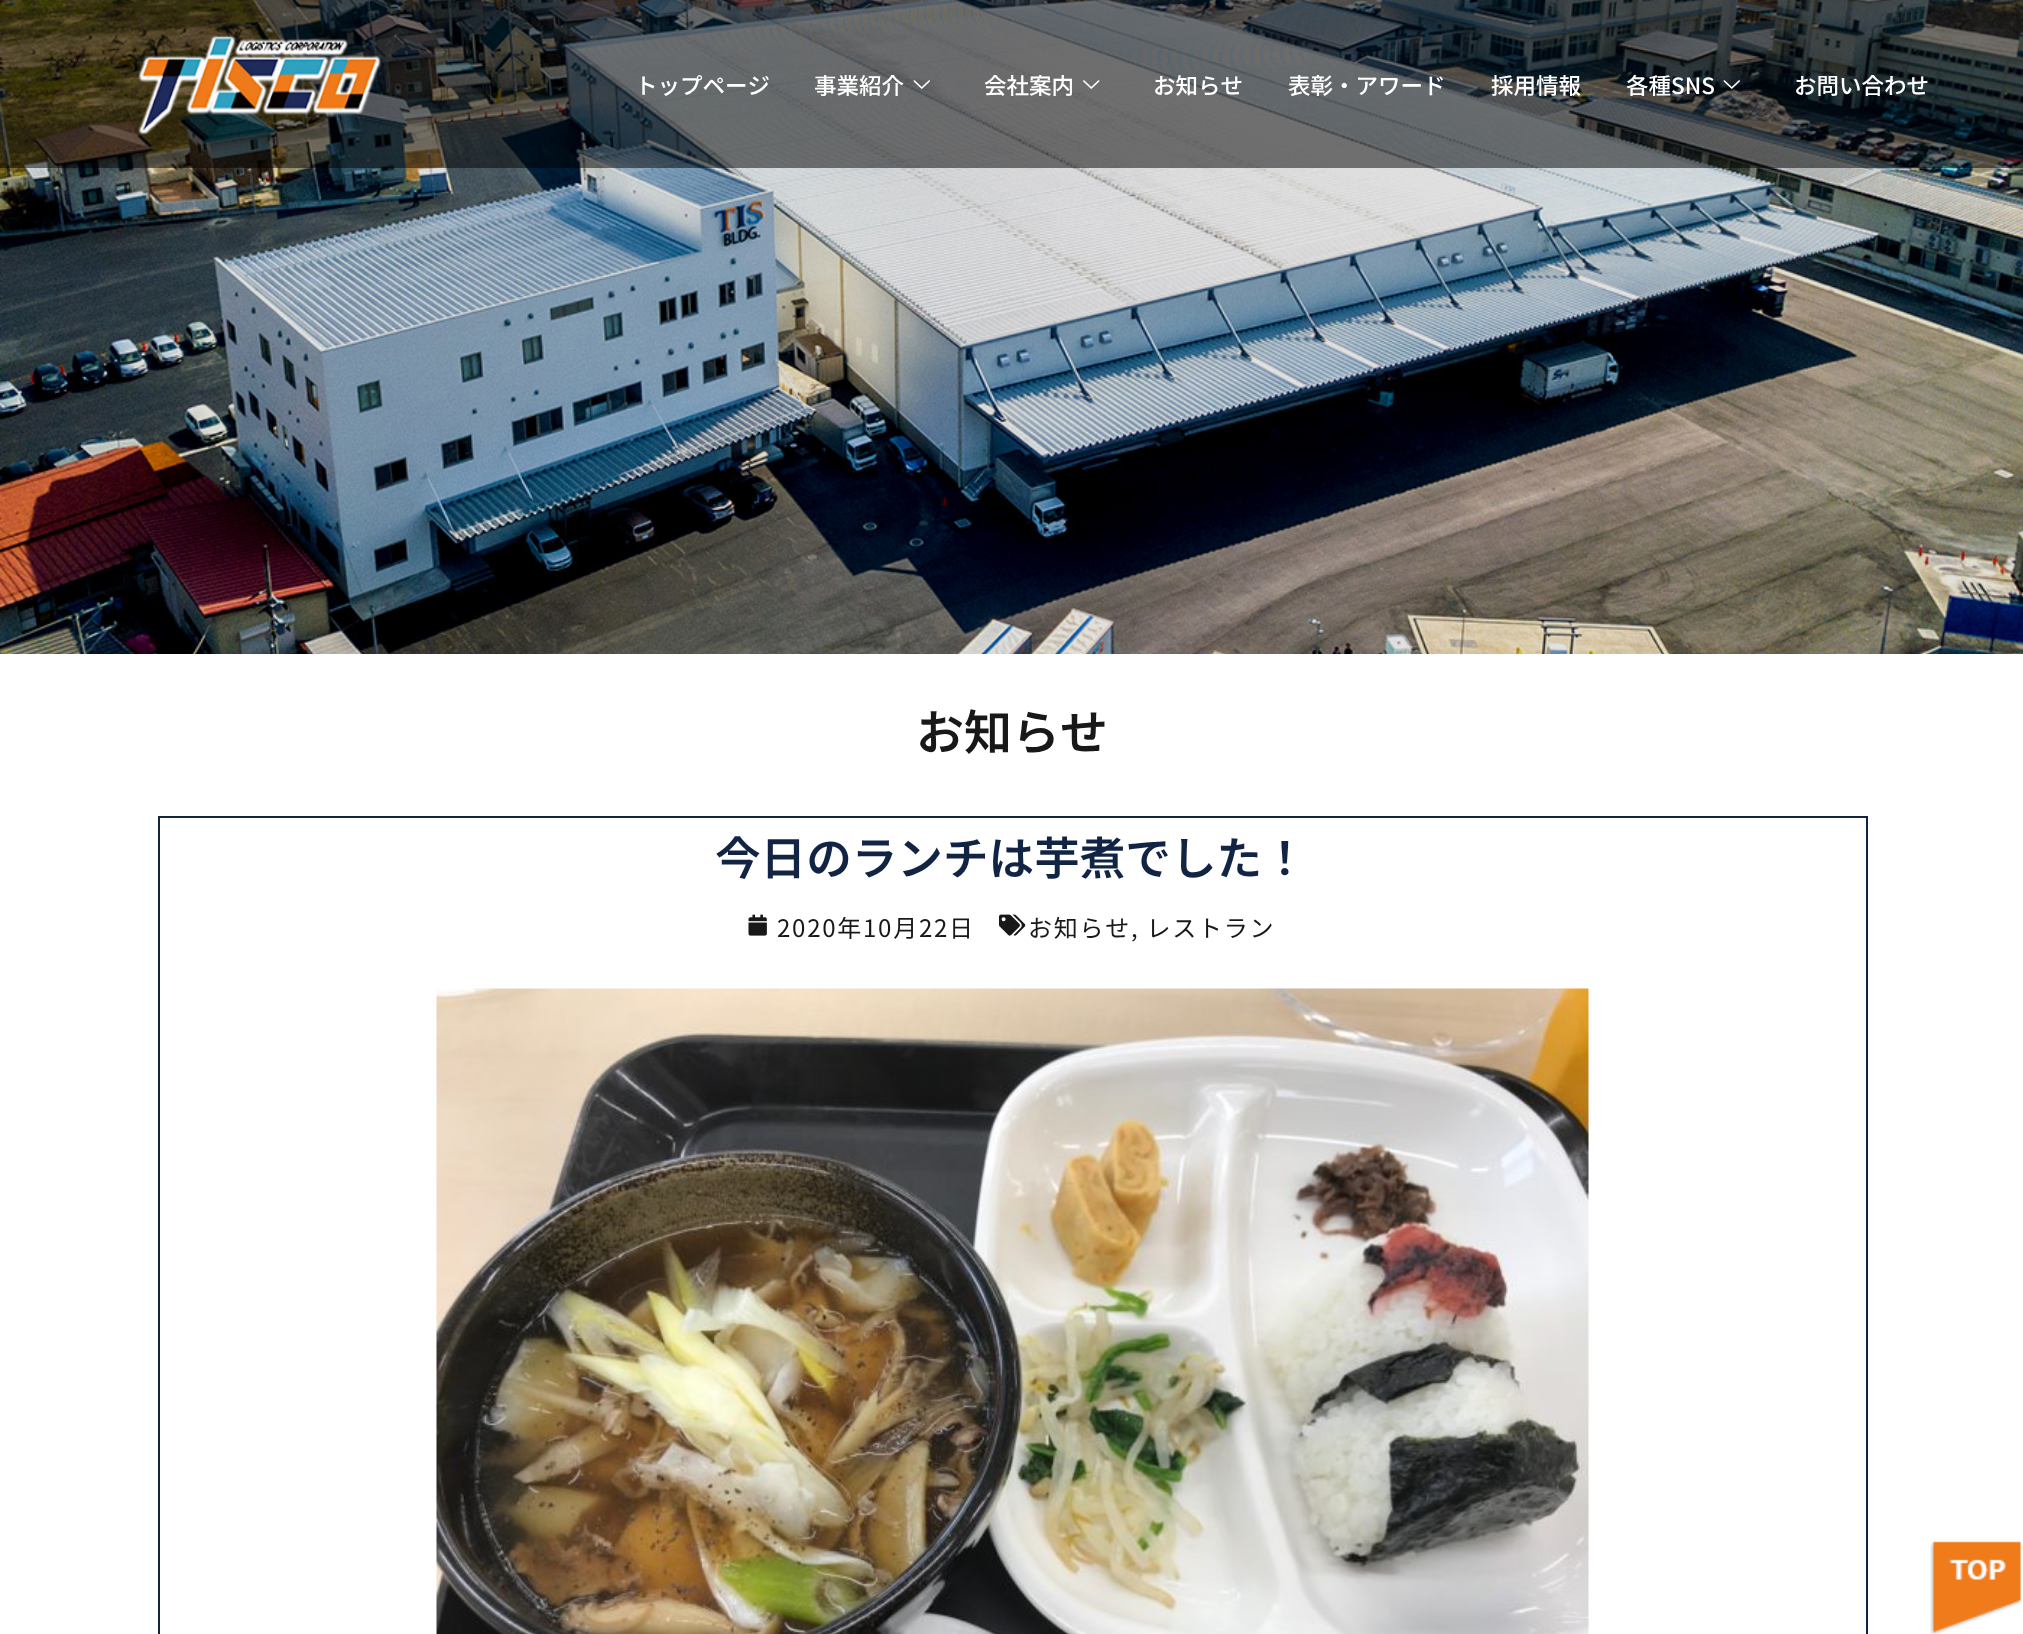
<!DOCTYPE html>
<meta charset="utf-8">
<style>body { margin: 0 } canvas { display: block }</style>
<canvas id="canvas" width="2023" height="1634"></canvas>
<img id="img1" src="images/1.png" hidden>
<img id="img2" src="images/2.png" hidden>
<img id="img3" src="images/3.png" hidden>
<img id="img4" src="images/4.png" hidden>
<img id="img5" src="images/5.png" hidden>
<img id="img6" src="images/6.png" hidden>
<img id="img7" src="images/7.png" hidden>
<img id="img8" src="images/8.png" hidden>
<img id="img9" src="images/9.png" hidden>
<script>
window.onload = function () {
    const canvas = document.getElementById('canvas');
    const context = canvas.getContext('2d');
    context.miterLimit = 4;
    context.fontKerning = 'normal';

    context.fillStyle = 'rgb(255, 255, 255)';
    context.fillRect(0, 0, 2023, 1634);
    context.drawImage(document.getElementById('img1'), 0, 0, 2023, 654);
    context.fillStyle = 'rgba(0, 0, 0, 0.5)';
    context.fillRect(0, 0, 2023, 168);
    context.drawImage(document.getElementById('img2'), 138, 35, 243, 100);
    context.drawImage(document.getElementById('img3'), 913, 80, 17, 9);
    context.drawImage(document.getElementById('img4'), 1083, 80, 17, 9);
    context.drawImage(document.getElementById('img5'), 1723, 80, 17, 9);
    context.strokeStyle = 'rgb(18, 36, 67)';
    context.lineWidth = 2;
    context.strokeRect(159, 817, 1708, 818);
    context.drawImage(document.getElementById('img6'), 748, 914, 19, 22);
    context.drawImage(document.getElementById('img7'), 999, 914, 27, 22);
    context.drawImage(document.getElementById('img8'), 436, 988, 1153, 646);
    context.drawImage(document.getElementById('img9'), 1930, 1541, 92, 93);
    context.font = '500 22.5px Noto Sans JP';
    context.fillStyle = 'rgb(255, 255, 255)';
    context.fillText('トップページ', 635, 94);
    context.fillText('事業紹介', 814, 94);
    context.fillText('会社案内', 984, 94);
    context.fillText('お知らせ', 1153, 94);
    context.fillText('表彰・アワード', 1288, 94);
    context.fillText('採用情報', 1491, 94);
    context.fillText('各種SNS', 1626, 94);
    context.fillText('お問い合わせ', 1794, 94);
    context.font = '600 48px Noto Sans JP';
    context.fillStyle = 'rgb(24, 24, 24)';
    context.fillText('お知らせ', 916, 750);
    context.font = '600 45.6px Noto Sans JP';
    context.fillStyle = 'rgb(18, 36, 67)';
    context.fillText('今日のランチは芋煮でした！', 715, 875);
    context.letterSpacing = '1.75px';
    context.font = '24px Noto Sans JP';
    context.fillStyle = 'rgb(24, 24, 24)';
    context.fillText('2020年10月22日', 777, 937);
    context.fillText('お知らせ, レストラン', 1028, 937);
};
</script>
